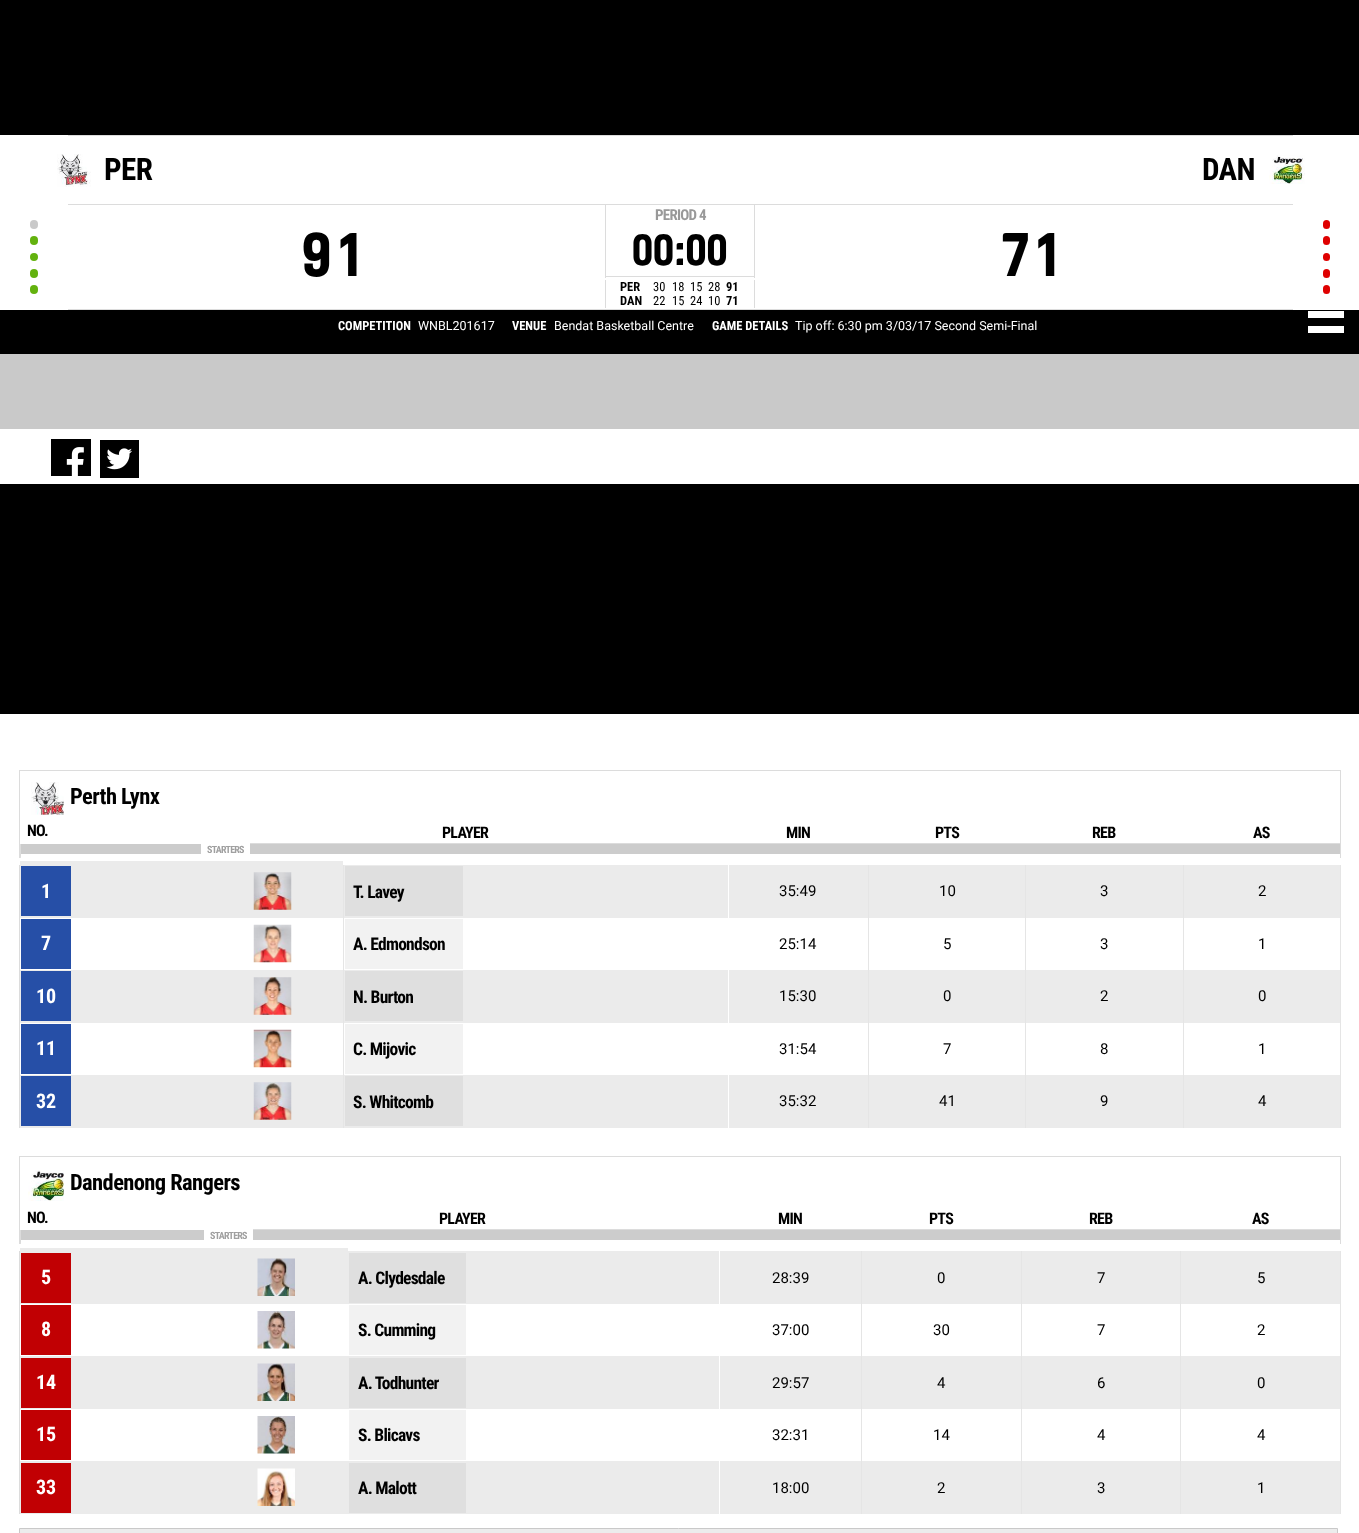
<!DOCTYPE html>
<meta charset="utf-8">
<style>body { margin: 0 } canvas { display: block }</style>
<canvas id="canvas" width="1359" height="1533"></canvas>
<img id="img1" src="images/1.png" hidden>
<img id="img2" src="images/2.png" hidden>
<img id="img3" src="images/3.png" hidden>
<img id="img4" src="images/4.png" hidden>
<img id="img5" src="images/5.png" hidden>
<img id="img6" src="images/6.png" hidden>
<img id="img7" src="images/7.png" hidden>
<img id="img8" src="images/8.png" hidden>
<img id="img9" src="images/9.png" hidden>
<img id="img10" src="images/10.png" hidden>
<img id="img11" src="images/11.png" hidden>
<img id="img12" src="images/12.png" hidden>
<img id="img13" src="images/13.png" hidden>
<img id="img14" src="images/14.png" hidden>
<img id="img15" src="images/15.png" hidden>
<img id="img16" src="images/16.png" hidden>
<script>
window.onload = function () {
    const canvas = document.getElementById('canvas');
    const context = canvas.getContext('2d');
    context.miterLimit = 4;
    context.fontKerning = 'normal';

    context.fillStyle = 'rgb(0, 0, 0)';
    context.fillRect(0, 0, 1359, 1533);
    context.fillStyle = 'rgb(255, 255, 255)';
    context.fillRect(0, 135, 1359, 175);
    context.fillStyle = 'rgb(220, 220, 220)';
    context.fillRect(68, 135, 1225, 1);
    context.drawImage(document.getElementById('img1'), 57, 154, 34, 33);
    context.fillStyle = 'rgb(201, 201, 201)';
    context.beginPath();
    context.roundRect(30, 220, 8, 9, 4);
    context.fill();
    context.fillStyle = 'rgb(99, 178, 14)';
    context.beginPath();
    context.roundRect(30, 236, 8, 9, 4);
    context.fill();
    context.beginPath();
    context.arc(34, 257, 4, 0, 2 * Math.PI);
    context.fill();
    context.beginPath();
    context.roundRect(30, 269, 8, 9, 4);
    context.fill();
    context.beginPath();
    context.roundRect(30, 285, 8, 9, 4);
    context.fill();
    context.fillStyle = 'rgb(220, 220, 220)';
    context.fillRect(68, 204, 1225, 1);
    context.fillRect(68, 309, 1225, 1);
    context.fillRect(754, 205, 1, 73);
    context.fillRect(605, 205, 1, 20);
    context.fillRect(605, 276, 150, 1);
    context.fillRect(605, 224, 1, 54);
    context.fillRect(754, 280, 1, 28);
    context.fillRect(605, 280, 1, 28);
    context.drawImage(document.getElementById('img2'), 1269, 155, 36, 29);
    context.fillStyle = 'rgb(223, 0, 0)';
    context.beginPath();
    context.roundRect(1323, 220, 7, 9, 3.5);
    context.fill();
    context.beginPath();
    context.roundRect(1323, 236, 7, 9, 3.5);
    context.fill();
    context.beginPath();
    context.roundRect(1323, 253, 7, 8, 3.5);
    context.fill();
    context.beginPath();
    context.roundRect(1323, 269, 7, 9, 3.5);
    context.fill();
    context.beginPath();
    context.roundRect(1323, 285, 7, 9, 3.5);
    context.fill();
    context.fillStyle = 'rgb(201, 201, 201)';
    context.fillRect(0, 354, 1359, 75);
    context.fillStyle = 'rgb(255, 255, 255)';
    context.fillRect(1308, 311, 36, 7);
    context.fillRect(1308, 326, 36, 7);
    context.fillRect(0, 429, 1359, 55);
    context.fillStyle = 'rgb(0, 0, 0)';
    context.fillRect(51, 439, 39, 6);
    context.fillRect(88, 439, 3, 37);
    context.fillRect(51, 439, 3, 37);
    context.drawImage(document.getElementById('img3'), 54, 445, 34, 31);
    context.fillRect(100, 440, 39, 3);
    context.fillRect(136, 440, 3, 38);
    context.fillRect(100, 474, 39, 4);
    context.fillRect(100, 440, 3, 38);
    context.drawImage(document.getElementById('img4'), 103, 443, 33, 31);
    context.fillStyle = 'rgb(255, 255, 255)';
    context.fillRect(0, 714, 1359, 819);
    context.fillStyle = 'rgb(220, 220, 220)';
    context.fillRect(19, 770, 1322, 1);
    context.fillRect(1340, 770, 1, 73);
    context.fillRect(19, 770, 1, 358);
    context.drawImage(document.getElementById('img5'), 31, 782, 33, 33);
    context.fillRect(250, 843, 1091, 1);
    context.fillStyle = 'rgb(204, 204, 204)';
    context.fillRect(20, 844, 181, 14);
    context.fillStyle = 'rgb(255, 255, 255)';
    context.beginPath();
    context.moveTo(202, 861);
    context.lineTo(20, 861);
    context.lineTo(21, 854);
    context.lineTo(202, 854);
    context.closePath();
    context.fill();
    context.fillStyle = 'rgb(220, 220, 220)';
    context.beginPath();
    context.moveTo(20, 861);
    context.lineTo(20, 844);
    context.lineTo(21, 844);
    context.lineTo(21, 854);
    context.closePath();
    context.fill();
    context.fillStyle = 'rgb(255, 255, 255)';
    context.fillRect(19, 858, 2, 7);
    context.fillStyle = 'rgb(204, 204, 204)';
    context.fillRect(250, 844, 1090, 10);
    context.fillStyle = 'rgb(229, 229, 229)';
    context.fillRect(1340, 861, 1, 267);
    context.fillStyle = 'rgb(220, 220, 220)';
    context.fillRect(1340, 843, 1, 20);
    context.fillStyle = 'rgb(229, 229, 229)';
    context.fillRect(343, 861, 1, 267);
    context.fillRect(868, 861, 1, 267);
    context.fillRect(1025, 861, 1, 267);
    context.fillRect(1183, 861, 1, 267);
    context.fillStyle = 'rgb(255, 255, 255)';
    context.fillRect(343, 858, 998, 7);
    context.fillStyle = 'rgb(235, 235, 235)';
    context.fillRect(20, 861, 323, 57);
    context.drawImage(document.getElementById('img6'), 253, 872, 39, 38);
    context.fillStyle = 'rgb(38, 79, 167)';
    context.fillRect(21, 866, 50, 50);
    context.fillStyle = 'rgb(235, 235, 235)';
    context.fillRect(344, 865, 384, 53);
    context.fillStyle = 'rgb(223, 223, 223)';
    context.fillRect(345, 866, 118, 50);
    context.fillStyle = 'rgb(235, 235, 235)';
    context.fillRect(729, 865, 139, 53);
    context.fillRect(869, 865, 156, 53);
    context.fillRect(1026, 865, 157, 53);
    context.fillRect(1184, 865, 156, 53);
    context.fillStyle = 'rgb(38, 79, 167)';
    context.fillRect(21, 919, 50, 50);
    context.drawImage(document.getElementById('img7'), 253, 924, 39, 39);
    context.fillStyle = 'rgb(242, 242, 242)';
    context.fillRect(345, 919, 118, 50);
    context.fillStyle = 'rgb(235, 235, 235)';
    context.fillRect(20, 970, 323, 53);
    context.drawImage(document.getElementById('img8'), 253, 977, 39, 38);
    context.fillStyle = 'rgb(38, 79, 167)';
    context.fillRect(21, 971, 50, 50);
    context.fillStyle = 'rgb(235, 235, 235)';
    context.fillRect(344, 970, 384, 53);
    context.fillStyle = 'rgb(223, 223, 223)';
    context.fillRect(345, 971, 118, 50);
    context.fillStyle = 'rgb(235, 235, 235)';
    context.fillRect(729, 970, 139, 53);
    context.fillRect(869, 970, 156, 53);
    context.fillRect(1026, 970, 157, 53);
    context.fillRect(1184, 970, 156, 53);
    context.fillStyle = 'rgb(38, 79, 167)';
    context.fillRect(21, 1024, 50, 50);
    context.drawImage(document.getElementById('img9'), 253, 1029, 39, 39);
    context.fillStyle = 'rgb(242, 242, 242)';
    context.fillRect(345, 1024, 118, 50);
    context.fillStyle = 'rgb(235, 235, 235)';
    context.fillRect(20, 1075, 323, 53);
    context.drawImage(document.getElementById('img10'), 253, 1082, 39, 38);
    context.fillStyle = 'rgb(38, 79, 167)';
    context.fillRect(21, 1076, 50, 50);
    context.fillStyle = 'rgb(235, 235, 235)';
    context.fillRect(344, 1075, 384, 53);
    context.fillStyle = 'rgb(223, 223, 223)';
    context.fillRect(345, 1076, 118, 50);
    context.fillStyle = 'rgb(235, 235, 235)';
    context.fillRect(729, 1075, 139, 53);
    context.fillRect(869, 1075, 156, 53);
    context.fillRect(1026, 1075, 157, 53);
    context.fillRect(1184, 1075, 156, 53);
    context.fillStyle = 'rgb(220, 220, 220)';
    context.fillRect(19, 1156, 1322, 1);
    context.fillRect(1340, 1156, 1, 73);
    context.fillRect(19, 1156, 1, 358);
    context.drawImage(document.getElementById('img11'), 28, 1170, 36, 31);
    context.fillRect(253, 1229, 1088, 1);
    context.fillStyle = 'rgb(204, 204, 204)';
    context.fillRect(20, 1230, 184, 14);
    context.fillStyle = 'rgb(255, 255, 255)';
    context.beginPath();
    context.moveTo(205, 1248);
    context.lineTo(20, 1248);
    context.lineTo(21, 1240);
    context.lineTo(205, 1240);
    context.closePath();
    context.fill();
    context.fillStyle = 'rgb(220, 220, 220)';
    context.beginPath();
    context.moveTo(20, 1247.5);
    context.lineTo(20, 1230);
    context.lineTo(21, 1230);
    context.lineTo(21, 1240);
    context.closePath();
    context.fill();
    context.fillStyle = 'rgb(255, 255, 255)';
    context.fillRect(19, 1244, 2, 7);
    context.fillStyle = 'rgb(204, 204, 204)';
    context.fillRect(253, 1230, 1087, 10);
    context.fillStyle = 'rgb(229, 229, 229)';
    context.fillRect(1340, 1248, 1, 266);
    context.fillStyle = 'rgb(220, 220, 220)';
    context.fillRect(1340, 1229, 1, 20);
    context.fillStyle = 'rgb(229, 229, 229)';
    context.fillRect(861, 1248, 1, 266);
    context.fillRect(1021, 1248, 1, 266);
    context.fillRect(1180, 1248, 1, 266);
    context.fillStyle = 'rgb(255, 255, 255)';
    context.fillRect(861, 1244, 480, 7);
    context.fillStyle = 'rgb(235, 235, 235)';
    context.fillRect(20, 1248, 328, 56);
    context.drawImage(document.getElementById('img12'), 257, 1258, 38, 38);
    context.fillStyle = 'rgb(193, 0, 3)';
    context.fillRect(21, 1253, 50, 50);
    context.fillStyle = 'rgb(235, 235, 235)';
    context.fillRect(348, 1251, 371, 53);
    context.fillStyle = 'rgb(223, 223, 223)';
    context.fillRect(349, 1253, 117, 50);
    context.fillStyle = 'rgb(235, 235, 235)';
    context.fillRect(720, 1251, 141, 53);
    context.fillRect(862, 1251, 159, 53);
    context.fillRect(1022, 1251, 158, 53);
    context.fillRect(1181, 1251, 159, 53);
    context.fillStyle = 'rgb(193, 0, 3)';
    context.fillRect(21, 1305, 50, 50);
    context.drawImage(document.getElementById('img13'), 257, 1311, 38, 38);
    context.fillStyle = 'rgb(242, 242, 242)';
    context.fillRect(349, 1305, 117, 50);
    context.fillStyle = 'rgb(235, 235, 235)';
    context.fillRect(20, 1356, 699, 53);
    context.fillStyle = 'rgb(193, 0, 3)';
    context.fillRect(21, 1358, 50, 50);
    context.drawImage(document.getElementById('img14'), 257, 1363, 38, 38);
    context.fillStyle = 'rgb(223, 223, 223)';
    context.fillRect(349, 1358, 117, 50);
    context.fillStyle = 'rgb(235, 235, 235)';
    context.fillRect(720, 1356, 141, 53);
    context.fillRect(862, 1356, 159, 53);
    context.fillRect(1022, 1356, 158, 53);
    context.fillRect(1181, 1356, 159, 53);
    context.fillStyle = 'rgb(193, 0, 3)';
    context.fillRect(21, 1410, 50, 50);
    context.drawImage(document.getElementById('img15'), 257, 1416, 38, 38);
    context.fillStyle = 'rgb(242, 242, 242)';
    context.fillRect(349, 1410, 117, 50);
    context.fillStyle = 'rgb(235, 235, 235)';
    context.fillRect(20, 1461, 699, 53);
    context.fillStyle = 'rgb(193, 0, 3)';
    context.fillRect(21, 1463, 50, 50);
    context.drawImage(document.getElementById('img16'), 257, 1468, 38, 38);
    context.fillStyle = 'rgb(223, 223, 223)';
    context.fillRect(349, 1463, 117, 50);
    context.fillStyle = 'rgb(235, 235, 235)';
    context.fillRect(720, 1461, 141, 53);
    context.fillRect(862, 1461, 159, 53);
    context.fillRect(1022, 1461, 158, 53);
    context.fillRect(1181, 1461, 159, 53);
    context.fillStyle = 'rgb(236, 236, 236)';
    context.beginPath();
    context.rect(19.5, 1528.5, 1318, 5);
    context.fill();
    context.strokeStyle = 'rgb(201, 201, 201)';
    context.stroke();
    context.letterSpacing = '-0.6px';
    context.font = 'bold 31px Roboto Condensed';
    context.fillStyle = 'rgb(0, 0, 0)';
    context.fillText('PER', 104, 180);
    context.letterSpacing = '0px';
    context.font = '60px "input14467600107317"';
    context.fillText('91', 302, 276);
    context.letterSpacing = '-0.75px';
    context.font = 'bold 15px Roboto Condensed';
    context.fillStyle = 'rgb(153, 153, 153)';
    context.fillText('PERIOD 4', 655, 220);
    context.letterSpacing = '0px';
    context.font = '42.5px "input14467600107317"';
    context.fillStyle = 'rgb(0, 0, 0)';
    context.fillText('00:00', 632, 265);
    context.font = 'bold 12.5px Roboto Condensed';
    context.fillText('PER', 620, 291);
    context.font = '12.5px Roboto Condensed';
    context.fillText('30', 653, 291);
    context.fillText('18', 672, 291);
    context.fillText('15', 690, 291);
    context.fillText('28', 708, 291);
    context.font = 'bold 12.5px Roboto Condensed';
    context.fillText('91', 726, 291);
    context.fillText('DAN', 620, 305);
    context.font = '12.5px Roboto Condensed';
    context.fillText('22', 653, 305);
    context.fillText('15', 672, 305);
    context.fillText('24', 690, 305);
    context.fillText('10', 708, 305);
    context.font = 'bold 12.5px Roboto Condensed';
    context.fillText('71', 726, 305);
    context.letterSpacing = '-0.6px';
    context.font = 'bold 31px Roboto Condensed';
    context.fillText('DAN', 1202, 180);
    context.letterSpacing = '0px';
    context.font = '60px "input14467600107317"';
    context.fillText('71', 1002, 276);
    context.font = 'bold 12.5px Roboto Condensed';
    context.fillStyle = 'rgb(255, 255, 255)';
    context.fillText('COMPETITION', 338, 330);
    context.font = '12.5px Roboto';
    context.fillText('WNBL201617', 418, 330);
    context.font = 'bold 12.5px Roboto Condensed';
    context.fillText('VENUE', 512, 330);
    context.font = '12.5px Roboto';
    context.fillText('Bendat Basketball Centre', 554, 330);
    context.font = 'bold 12.5px Roboto Condensed';
    context.fillText('GAME DETAILS', 712, 330);
    context.font = '12.5px Roboto';
    context.fillText('Tip off: 6:30 pm 3/03/17 Second Semi-Final', 795, 330);
    context.letterSpacing = '-0.6px';
    context.font = 'bold 22.5px Roboto Condensed';
    context.fillStyle = 'rgb(0, 0, 0)';
    context.fillText('Perth Lynx', 70, 804);
    context.letterSpacing = '-0.75px';
    context.font = 'bold 16px Roboto Condensed';
    context.fillText('NO.', 27, 836);
    context.fillText('PLAYER', 442, 838);
    context.fillText('MIN', 786, 838);
    context.fillText('PTS', 935, 838);
    context.fillText('REB', 1092, 838);
    context.fillText('AS', 1253, 838);
    context.font = 'bold 10px Roboto Condensed';
    context.fillStyle = 'rgb(160, 160, 160)';
    context.fillText('STARTERS', 207, 853);
    context.letterSpacing = '0px';
    context.font = 'bold 20px Roboto Condensed';
    context.fillStyle = 'rgb(255, 255, 255)';
    context.fillText('1', 41, 898);
    context.letterSpacing = '-0.75px';
    context.font = 'bold 17.5px Roboto Condensed';
    context.fillStyle = 'rgb(0, 0, 0)';
    context.fillText('T. Lavey', 353, 898);
    context.letterSpacing = '0px';
    context.font = '15px Roboto';
    context.fillText('35:49', 779, 896);
    context.fillText('10', 939, 896);
    context.fillText('3', 1100, 896);
    context.fillText('2', 1258, 896);
    context.font = 'bold 20px Roboto Condensed';
    context.fillStyle = 'rgb(255, 255, 255)';
    context.fillText('7', 41, 950);
    context.letterSpacing = '-0.75px';
    context.font = 'bold 17.5px Roboto Condensed';
    context.fillStyle = 'rgb(0, 0, 0)';
    context.fillText('A. Edmondson', 353, 950);
    context.letterSpacing = '0px';
    context.font = '15px Roboto';
    context.fillText('25:14', 779, 949);
    context.fillText('5', 943, 949);
    context.fillText('3', 1100, 949);
    context.fillText('1', 1258, 949);
    context.font = 'bold 20px Roboto Condensed';
    context.fillStyle = 'rgb(255, 255, 255)';
    context.fillText('10', 36, 1003);
    context.letterSpacing = '-0.75px';
    context.font = 'bold 17.5px Roboto Condensed';
    context.fillStyle = 'rgb(0, 0, 0)';
    context.fillText('N. Burton', 353, 1003);
    context.letterSpacing = '0px';
    context.font = '15px Roboto';
    context.fillText('15:30', 779, 1001);
    context.fillText('0', 943, 1001);
    context.fillText('2', 1100, 1001);
    context.fillText('0', 1258, 1001);
    context.font = 'bold 20px Roboto Condensed';
    context.fillStyle = 'rgb(255, 255, 255)';
    context.fillText('11', 36, 1055);
    context.letterSpacing = '-0.75px';
    context.font = 'bold 17.5px Roboto Condensed';
    context.fillStyle = 'rgb(0, 0, 0)';
    context.fillText('C. Mijovic', 353, 1055);
    context.letterSpacing = '0px';
    context.font = '15px Roboto';
    context.fillText('31:54', 779, 1054);
    context.fillText('7', 943, 1054);
    context.fillText('8', 1100, 1054);
    context.fillText('1', 1258, 1054);
    context.font = 'bold 20px Roboto Condensed';
    context.fillStyle = 'rgb(255, 255, 255)';
    context.fillText('32', 36, 1108);
    context.letterSpacing = '-0.75px';
    context.font = 'bold 17.5px Roboto Condensed';
    context.fillStyle = 'rgb(0, 0, 0)';
    context.fillText('S. Whitcomb', 353, 1108);
    context.letterSpacing = '0px';
    context.font = '15px Roboto';
    context.fillText('35:32', 779, 1106);
    context.fillText('41', 939, 1106);
    context.fillText('9', 1100, 1106);
    context.fillText('4', 1258, 1106);
    context.letterSpacing = '-0.6px';
    context.font = 'bold 22.5px Roboto Condensed';
    context.fillText('Dandenong Rangers', 70, 1190);
    context.letterSpacing = '-0.75px';
    context.font = 'bold 16px Roboto Condensed';
    context.fillText('NO.', 27, 1223);
    context.fillText('PLAYER', 439, 1224);
    context.fillText('MIN', 778, 1224);
    context.fillText('PTS', 929, 1224);
    context.fillText('REB', 1089, 1224);
    context.fillText('AS', 1252, 1224);
    context.font = 'bold 10px Roboto Condensed';
    context.fillStyle = 'rgb(160, 160, 160)';
    context.fillText('STARTERS', 210, 1239);
    context.letterSpacing = '0px';
    context.font = 'bold 20px Roboto Condensed';
    context.fillStyle = 'rgb(255, 255, 255)';
    context.fillText('5', 41, 1284);
    context.letterSpacing = '-0.75px';
    context.font = 'bold 17.5px Roboto Condensed';
    context.fillStyle = 'rgb(0, 0, 0)';
    context.fillText('A. Clydesdale', 358, 1284);
    context.letterSpacing = '0px';
    context.font = '15px Roboto';
    context.fillText('28:39', 772, 1283);
    context.fillText('0', 937, 1283);
    context.fillText('7', 1097, 1283);
    context.fillText('5', 1257, 1283);
    context.font = 'bold 20px Roboto Condensed';
    context.fillStyle = 'rgb(255, 255, 255)';
    context.fillText('8', 41, 1336);
    context.letterSpacing = '-0.75px';
    context.font = 'bold 17.5px Roboto Condensed';
    context.fillStyle = 'rgb(0, 0, 0)';
    context.fillText('S. Cumming', 358, 1336);
    context.letterSpacing = '0px';
    context.font = '15px Roboto';
    context.fillText('37:00', 772, 1335);
    context.fillText('30', 933, 1335);
    context.fillText('7', 1097, 1335);
    context.fillText('2', 1257, 1335);
    context.font = 'bold 20px Roboto Condensed';
    context.fillStyle = 'rgb(255, 255, 255)';
    context.fillText('14', 36, 1389);
    context.letterSpacing = '-0.75px';
    context.font = 'bold 17.5px Roboto Condensed';
    context.fillStyle = 'rgb(0, 0, 0)';
    context.fillText('A. Todhunter', 358, 1389);
    context.letterSpacing = '0px';
    context.font = '15px Roboto';
    context.fillText('29:57', 772, 1388);
    context.fillText('4', 937, 1388);
    context.fillText('6', 1097, 1388);
    context.fillText('0', 1257, 1388);
    context.font = 'bold 20px Roboto Condensed';
    context.fillStyle = 'rgb(255, 255, 255)';
    context.fillText('15', 36, 1441);
    context.letterSpacing = '-0.75px';
    context.font = 'bold 17.5px Roboto Condensed';
    context.fillStyle = 'rgb(0, 0, 0)';
    context.fillText('S. Blicavs', 358, 1441);
    context.letterSpacing = '0px';
    context.font = '15px Roboto';
    context.fillText('32:31', 772, 1440);
    context.fillText('14', 933, 1440);
    context.fillText('4', 1097, 1440);
    context.fillText('4', 1257, 1440);
    context.font = 'bold 20px Roboto Condensed';
    context.fillStyle = 'rgb(255, 255, 255)';
    context.fillText('33', 36, 1494);
    context.letterSpacing = '-0.75px';
    context.font = 'bold 17.5px Roboto Condensed';
    context.fillStyle = 'rgb(0, 0, 0)';
    context.fillText('A. Malott', 358, 1494);
    context.letterSpacing = '0px';
    context.font = '15px Roboto';
    context.fillText('18:00', 772, 1493);
    context.fillText('2', 937, 1493);
    context.fillText('3', 1097, 1493);
    context.fillText('1', 1257, 1493);
};
</script>
